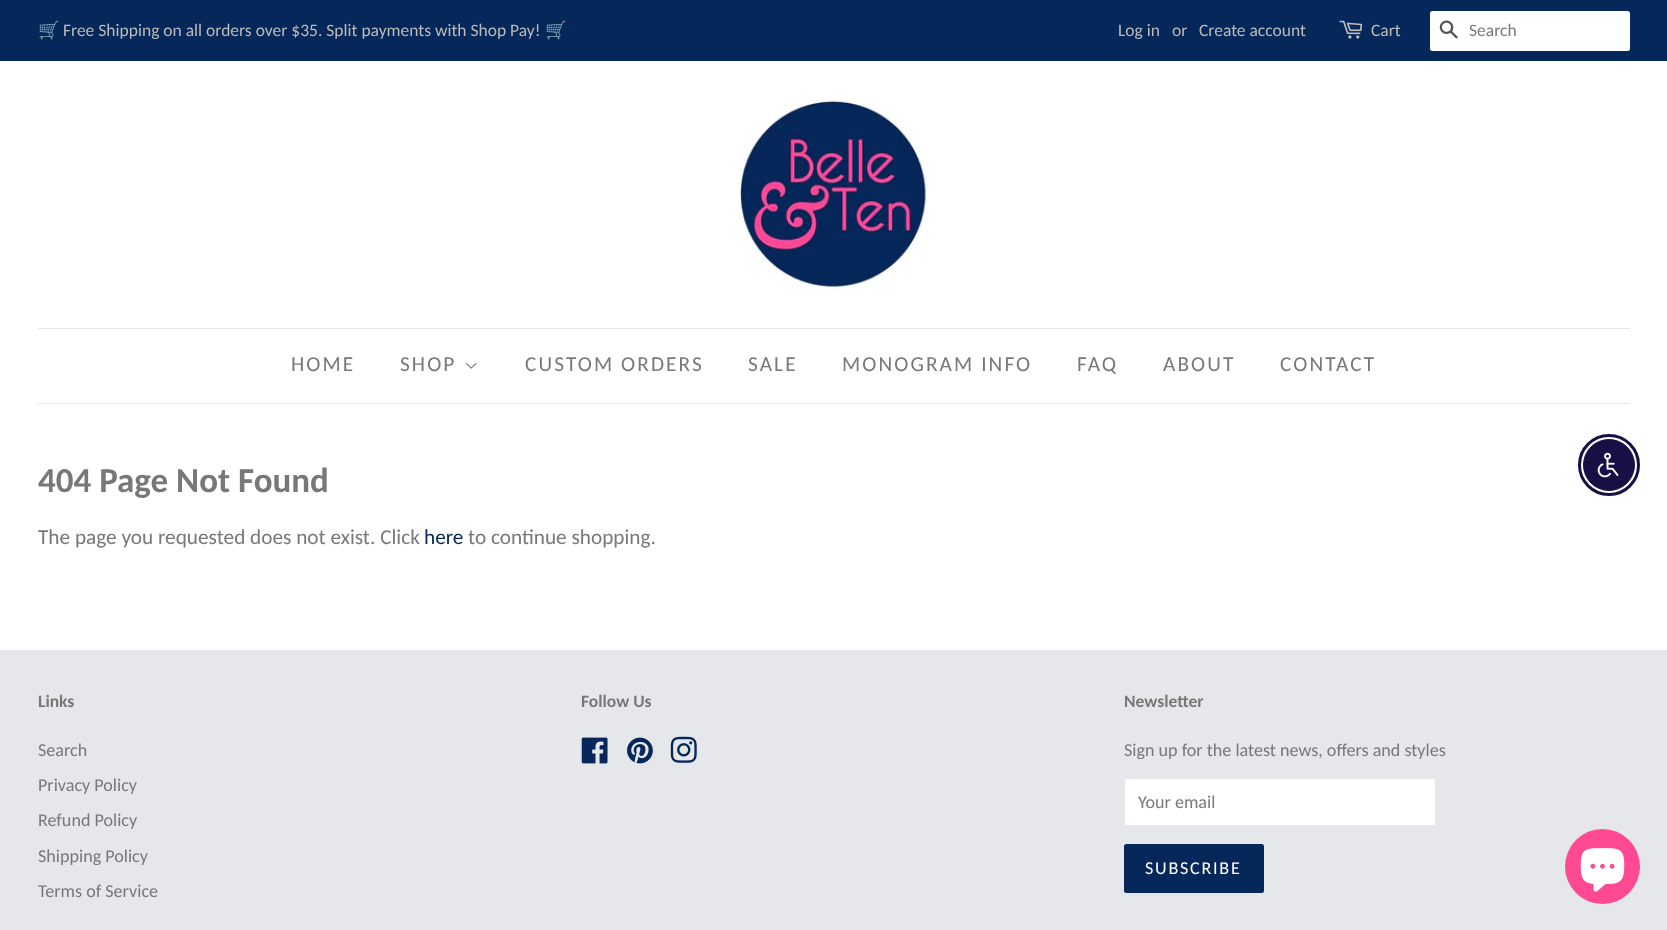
<!DOCTYPE html>
<meta charset="utf-8">
<style>body { margin: 0 } canvas { display: block }</style>
<canvas id="canvas" width="1667" height="930"></canvas>
<img id="img1" src="images/1.png" hidden>
<img id="img2" src="images/2.png" hidden>
<img id="img3" src="images/3.png" hidden>
<img id="img4" src="images/4.png" hidden>
<img id="img5" src="images/5.png" hidden>
<img id="img6" src="images/6.png" hidden>
<img id="img7" src="images/7.png" hidden>
<img id="img8" src="images/8.png" hidden>
<img id="img9" src="images/9.png" hidden>
<script>
window.onload = function () {
    const canvas = document.getElementById('canvas');
    const context = canvas.getContext('2d');
    context.miterLimit = 4;
    context.fontKerning = 'normal';

    context.fillStyle = 'rgb(255, 255, 255)';
    context.fillRect(0, 0, 1667, 930);
    context.fillStyle = 'rgb(6, 39, 89)';
    context.fillRect(0, 0, 1667, 61);
    context.drawImage(document.getElementById('img1'), 1339, 20, 24, 19);
    context.fillStyle = 'rgb(255, 255, 255)';
    context.beginPath();
    context.roundRect(1430, 11, 200, 40, 2.5);
    context.fill();
    context.drawImage(document.getElementById('img2'), 1439, 20, 19, 19);
    context.drawImage(document.getElementById('img3'), 740, 99, 188, 191);
    context.fillStyle = 'rgb(229, 231, 234)';
    context.fillRect(38, 328, 1592, 1);
    context.fillRect(38, 403, 1592, 1);
    context.drawImage(document.getElementById('img4'), 465, 363, 12, 6);
    context.beginPath();
    context.arc(1609, 465, 29.5, 0, 2 * Math.PI);
    context.strokeStyle = 'rgb(22, 16, 68)';
    context.lineWidth = 3;
    context.stroke();
    context.fillStyle = 'rgb(22, 16, 68)';
    context.beginPath();
    context.arc(1609, 465, 25.5, 0, 2 * Math.PI);
    context.fill();
    context.lineWidth = 1;
    context.stroke();
    context.drawImage(document.getElementById('img5'), 1597, 452, 22, 26);
    context.fillStyle = 'rgb(229, 231, 234)';
    context.fillRect(0, 650, 1667, 280);
    context.drawImage(document.getElementById('img6'), 581, 737, 27, 27);
    context.drawImage(document.getElementById('img7'), 627, 737, 26, 27);
    context.drawImage(document.getElementById('img8'), 670, 736, 27, 27);
    context.fillStyle = 'rgb(255, 255, 255)';
    context.beginPath();
    context.roundRect(1124.5, 778.5, 311, 47, 2);
    context.fill();
    context.strokeStyle = 'rgb(229, 231, 234)';
    context.stroke();
    context.fillStyle = 'rgb(6, 39, 89)';
    context.beginPath();
    context.roundRect(1124, 844, 140, 49, 2.5);
    context.fill();
    context.fillStyle = 'rgb(255, 73, 146)';
    context.beginPath();
    context.arc(1602.5, 866.5, 37.5, 0, 2 * Math.PI);
    context.fill();
    context.drawImage(document.getElementById('img9'), 1580, 848, 45, 44);
    context.save();
    context.beginPath();
    context.rect(38, 16, 528, 30);
    context.clip();
    context.font = '17.5px Noto Color Emoji';
    context.fillStyle = 'rgb(187, 187, 187)';
    context.fillText('🛒', 38, 36);
    context.restore();
    context.font = '17.5px Carlito';
    context.fillStyle = 'rgb(187, 187, 187)';
    context.fillText('Free Shipping on all orders over $35. Split payments with Shop Pay!', 63, 36);
    context.font = '17.5px Noto Color Emoji';
    context.fillText('🛒', 545, 36);
    context.font = '17.5px Carlito';
    context.fillText('Log in', 1118, 36);
    context.fillText('or', 1172, 36);
    context.fillText('Create account', 1199, 36);
    context.fillText('Cart', 1371, 36);
    context.fillStyle = 'rgb(120, 120, 120)';
    context.fillText('Search', 1469, 36);
    context.letterSpacing = '2.1px';
    context.font = '21.25px Carlito';
    context.fillText('HOME', 291, 371);
    context.fillText('SHOP', 400, 371);
    context.fillText('CUSTOM ORDERS', 525, 371);
    context.fillText('SALE', 748, 371);
    context.fillText('MONOGRAM INFO', 842, 371);
    context.fillText('FAQ', 1077, 371);
    context.fillText('ABOUT', 1163, 371);
    context.fillText('CONTACT', 1280, 371);
    context.letterSpacing = '0px';
    context.font = 'bold 35px Carlito';
    context.fillText('404 Page Not Found', 38, 492);
    context.font = '21.25px Carlito';
    context.fillText('The page you requested does not exist. Click', 38, 544);
    context.fillStyle = 'rgb(6, 39, 89)';
    context.fillText('here', 424, 544);
    context.fillStyle = 'rgb(120, 120, 120)';
    context.fillText('to continue shopping.', 468, 544);
    context.font = 'bold 17.5px Carlito';
    context.fillText('Links', 38, 707);
    context.font = '18.1px Carlito';
    context.fillText('Search', 38, 756);
    context.fillText('Privacy Policy', 38, 791);
    context.fillText('Refund Policy', 38, 826);
    context.fillText('Shipping Policy', 38, 862);
    context.fillText('Terms of Service', 38, 897);
    context.font = 'bold 17.5px Carlito';
    context.fillText('Follow Us', 581, 707);
    context.fillText('Newsletter', 1124, 707);
    context.font = '18.1px Carlito';
    context.fillText('Sign up for the latest news, offers and styles', 1124, 756);
    context.fillText('Your email', 1138, 808);
    context.letterSpacing = '1.75px';
    context.fillStyle = 'rgb(255, 255, 255)';
    context.fillText('SUBSCRIBE', 1145, 874);
};
</script>
